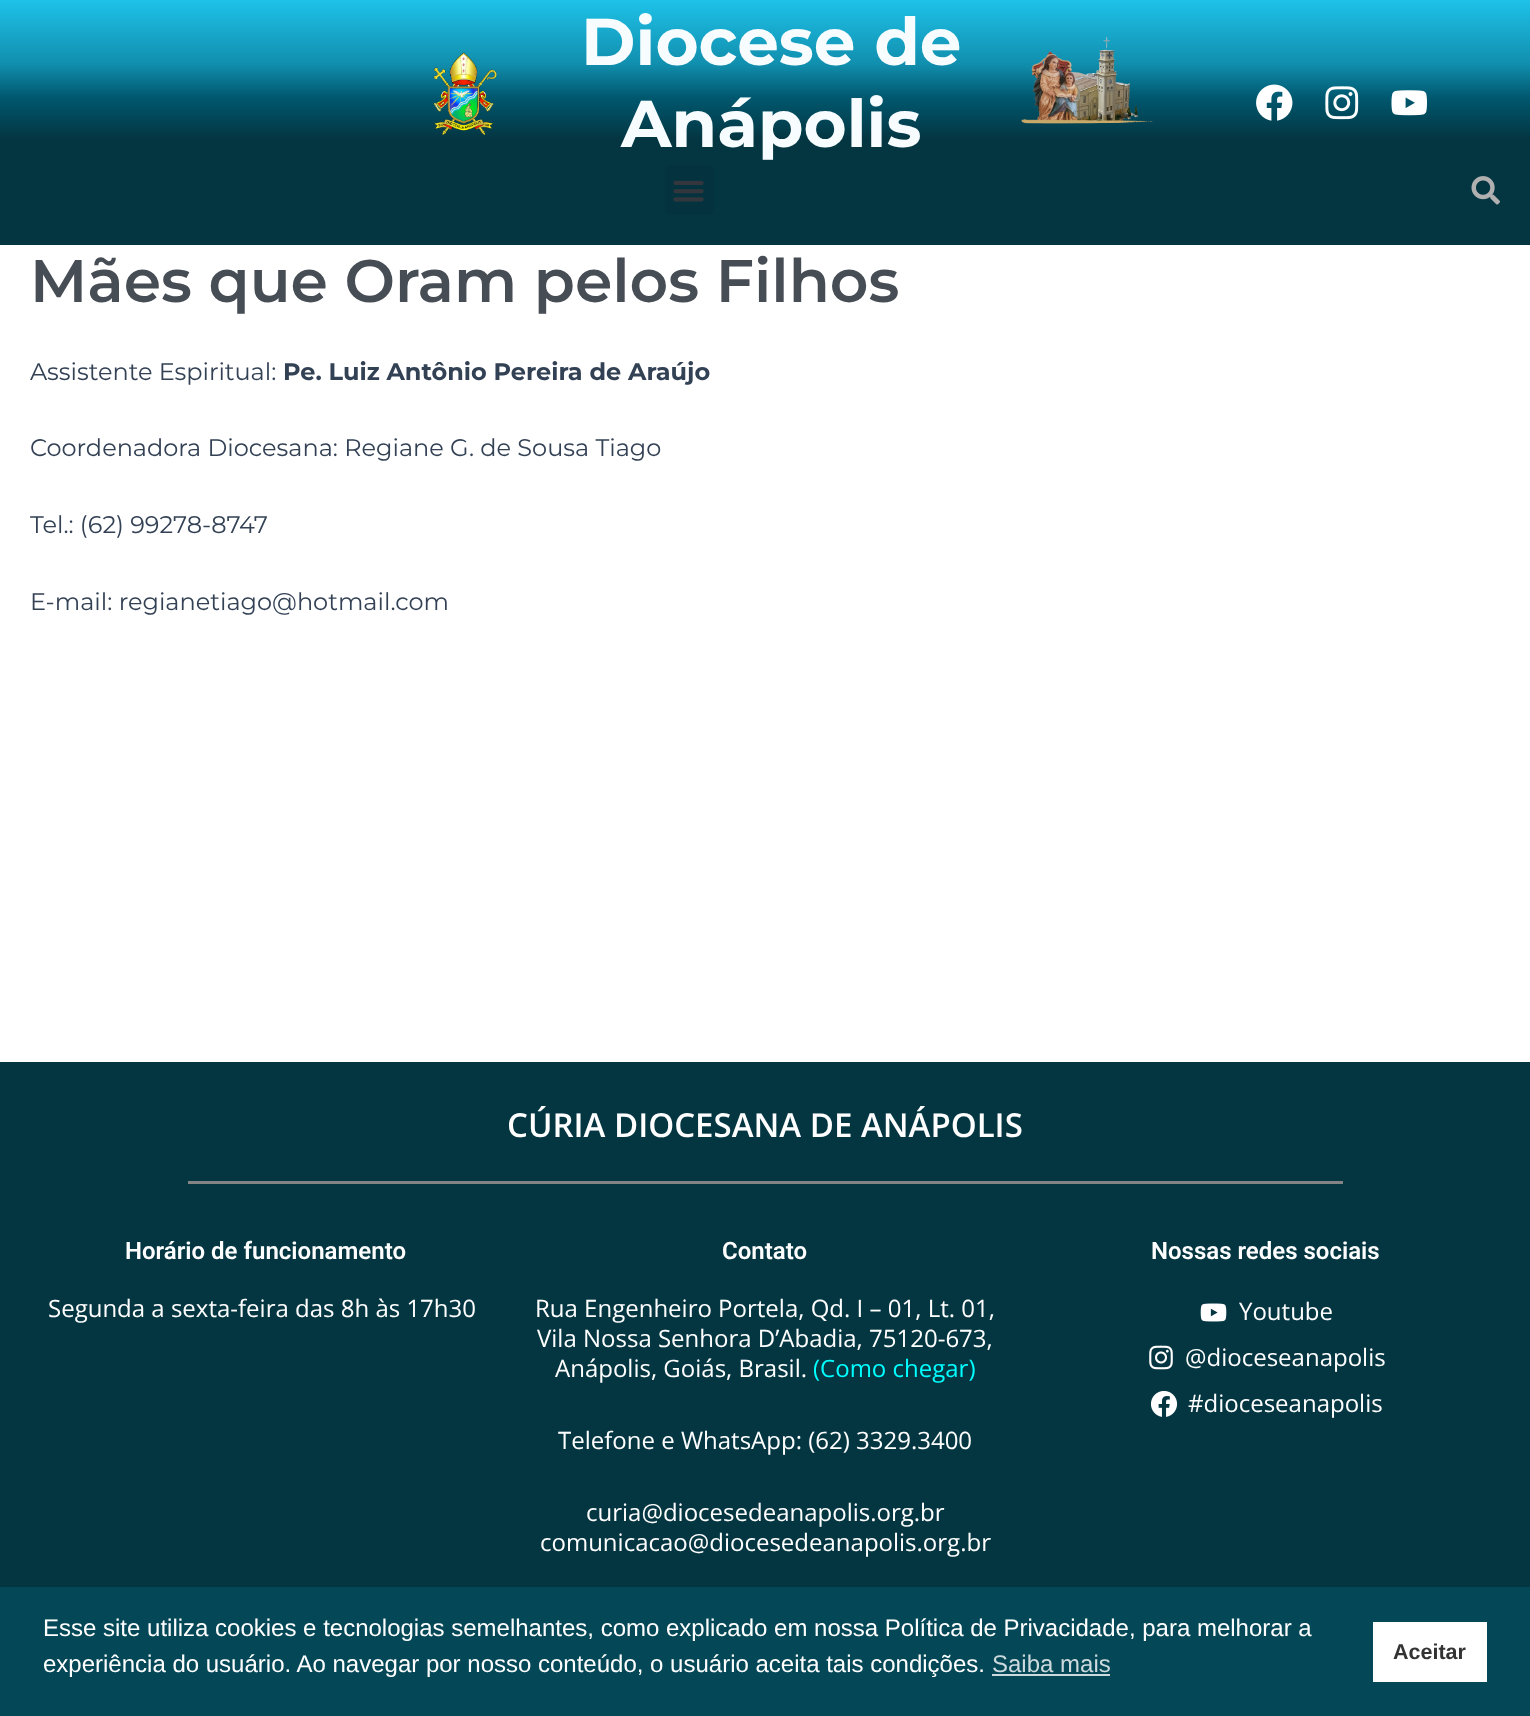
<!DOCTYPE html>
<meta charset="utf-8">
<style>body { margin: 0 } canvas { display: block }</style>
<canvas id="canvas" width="1530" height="1716"></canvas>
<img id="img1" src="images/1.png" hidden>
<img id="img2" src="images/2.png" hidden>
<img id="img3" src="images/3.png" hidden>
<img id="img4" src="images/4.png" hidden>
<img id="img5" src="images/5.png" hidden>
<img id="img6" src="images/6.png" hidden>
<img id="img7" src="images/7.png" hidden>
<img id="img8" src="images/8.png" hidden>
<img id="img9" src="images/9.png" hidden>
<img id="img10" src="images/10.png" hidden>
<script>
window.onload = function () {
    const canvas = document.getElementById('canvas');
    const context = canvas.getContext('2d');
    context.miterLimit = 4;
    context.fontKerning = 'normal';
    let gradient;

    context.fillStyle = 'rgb(255, 255, 255)';
    context.fillRect(0, 0, 1530, 1716);
    gradient = context.createLinearGradient(765, 165, 765, 0);
    gradient.addColorStop(0, 'rgb(4, 54, 66)');
    gradient.addColorStop(0.16, 'rgb(4, 54, 66)');
    gradient.addColorStop(0.41, 'rgb(0, 88, 111)');
    gradient.addColorStop(0.61, 'rgb(17, 142, 173)');
    gradient.addColorStop(1, 'rgb(30, 194, 233)');
    context.fillStyle = gradient;
    context.fillRect(0, 0, 1530, 165);
    context.drawImage(document.getElementById('img1'), 433, 52, 64, 83);
    context.drawImage(document.getElementById('img2'), 1021, 36, 135, 88);
    context.drawImage(document.getElementById('img3'), 1256, 84, 37, 37);
    context.drawImage(document.getElementById('img4'), 1325, 86, 34, 34);
    context.drawImage(document.getElementById('img5'), 1391, 90, 36, 26);
    context.fillStyle = 'rgb(4, 54, 66)';
    context.fillRect(0, 165, 1530, 80);
    context.fillStyle = 'rgb(4, 51, 63)';
    context.beginPath();
    context.roundRect(665, 165, 49, 50, 5);
    context.fill();
    context.drawImage(document.getElementById('img6'), 673, 180, 31, 22);
    context.drawImage(document.getElementById('img7'), 1471, 176, 29, 29);
    context.fillStyle = 'rgb(4, 54, 66)';
    context.fillRect(0, 1062, 1530, 525);
    context.fillStyle = 'rgb(132, 132, 132)';
    context.fillRect(188, 1181, 1155, 3);
    context.drawImage(document.getElementById('img8'), 1200, 1303, 27, 19);
    context.drawImage(document.getElementById('img9'), 1149, 1345, 24, 25);
    context.drawImage(document.getElementById('img10'), 1151, 1391, 27, 26);
    context.fillStyle = 'rgb(4, 71, 87)';
    context.fillRect(0, 1587, 1530, 129);
    context.fillStyle = 'rgb(205, 218, 221)';
    context.fillRect(992, 1674, 118, 2);
    context.fillStyle = 'rgb(255, 255, 255)';
    context.fillRect(1373, 1622, 114, 60);
    context.font = 'bold 66px Montserrat';
    context.fillStyle = 'rgb(247, 253, 255)';
    context.fillText('Diocese de', 581, 65);
    context.fillText('Anápolis', 621, 147);
    context.font = '600 60px Montserrat';
    context.fillStyle = 'rgb(71, 77, 85)';
    context.fillText('Mães que Oram pelos Filhos', 30, 302);
    context.font = '24px Montserrat';
    context.fillStyle = 'rgb(51, 65, 85)';
    context.fillText('Assistente Espiritual:', 30, 380);
    context.font = 'bold 24px Montserrat';
    context.fillText('Pe. Luiz Antônio Pereira de Araújo', 283, 380);
    context.font = '24px Montserrat';
    context.fillText('Coordenadora Diocesana: Regiane G. de Sousa Tiago', 30, 456);
    context.fillText('Tel.: (62) 99278-8747', 30, 533);
    context.fillText('E-mail: regianetiago@hotmail.com', 30, 610);
    context.font = '600 33px Open Sans';
    context.fillStyle = 'rgb(255, 255, 255)';
    context.fillText('CÚRIA DIOCESANA DE ANÁPOLIS', 507, 1137);
    context.font = '600 24px Roboto';
    context.fillText('Horário de funcionamento', 125, 1259);
    context.font = '24px Open Sans';
    context.fillText('Segunda a sexta-feira das 8h às 17h30', 48, 1317);
    context.font = '600 24px Roboto';
    context.fillText('Contato', 722, 1259);
    context.font = '24px Open Sans';
    context.fillText('Rua Engenheiro Portela, Qd. I – 01, Lt. 01,', 535, 1317);
    context.fillText('Vila Nossa Senhora D’Abadia, 75120-673,', 537, 1347);
    context.fillText('Anápolis, Goiás, Brasil.', 555, 1377);
    context.fillStyle = 'rgb(0, 255, 255)';
    context.fillText('(Como chegar)', 813, 1377);
    context.fillStyle = 'rgb(255, 255, 255)';
    context.fillText('Telefone e WhatsApp: (62) 3329.3400', 558, 1449);
    context.fillText('curia@diocesedeanapolis.org.br', 586, 1521);
    context.fillText('comunicacao@diocesedeanapolis.org.br', 540, 1551);
    context.font = '600 24px Roboto';
    context.fillText('Nossas redes sociais', 1151, 1259);
    context.font = '24px Open Sans';
    context.fillText('Youtube', 1239, 1320);
    context.fillText('@dioceseanapolis', 1185, 1366);
    context.fillText('#dioceseanapolis', 1188, 1412);
    context.font = '24px Liberation Sans';
    context.fillText('Esse site utiliza cookies e tecnologias semelhantes, como explicado em nossa Política de Privacidade, para melhorar a', 43, 1636);
    context.fillText('experiência do usuário. Ao navegar por nosso conteúdo, o usuário aceita tais condições.', 43, 1672);
    context.fillStyle = 'rgb(205, 218, 221)';
    context.fillText('Saiba mais', 992, 1672);
    context.font = 'bold 21.5px Liberation Sans';
    context.fillStyle = 'rgb(51, 51, 51)';
    context.fillText('Aceitar', 1393, 1659);
};
</script>
